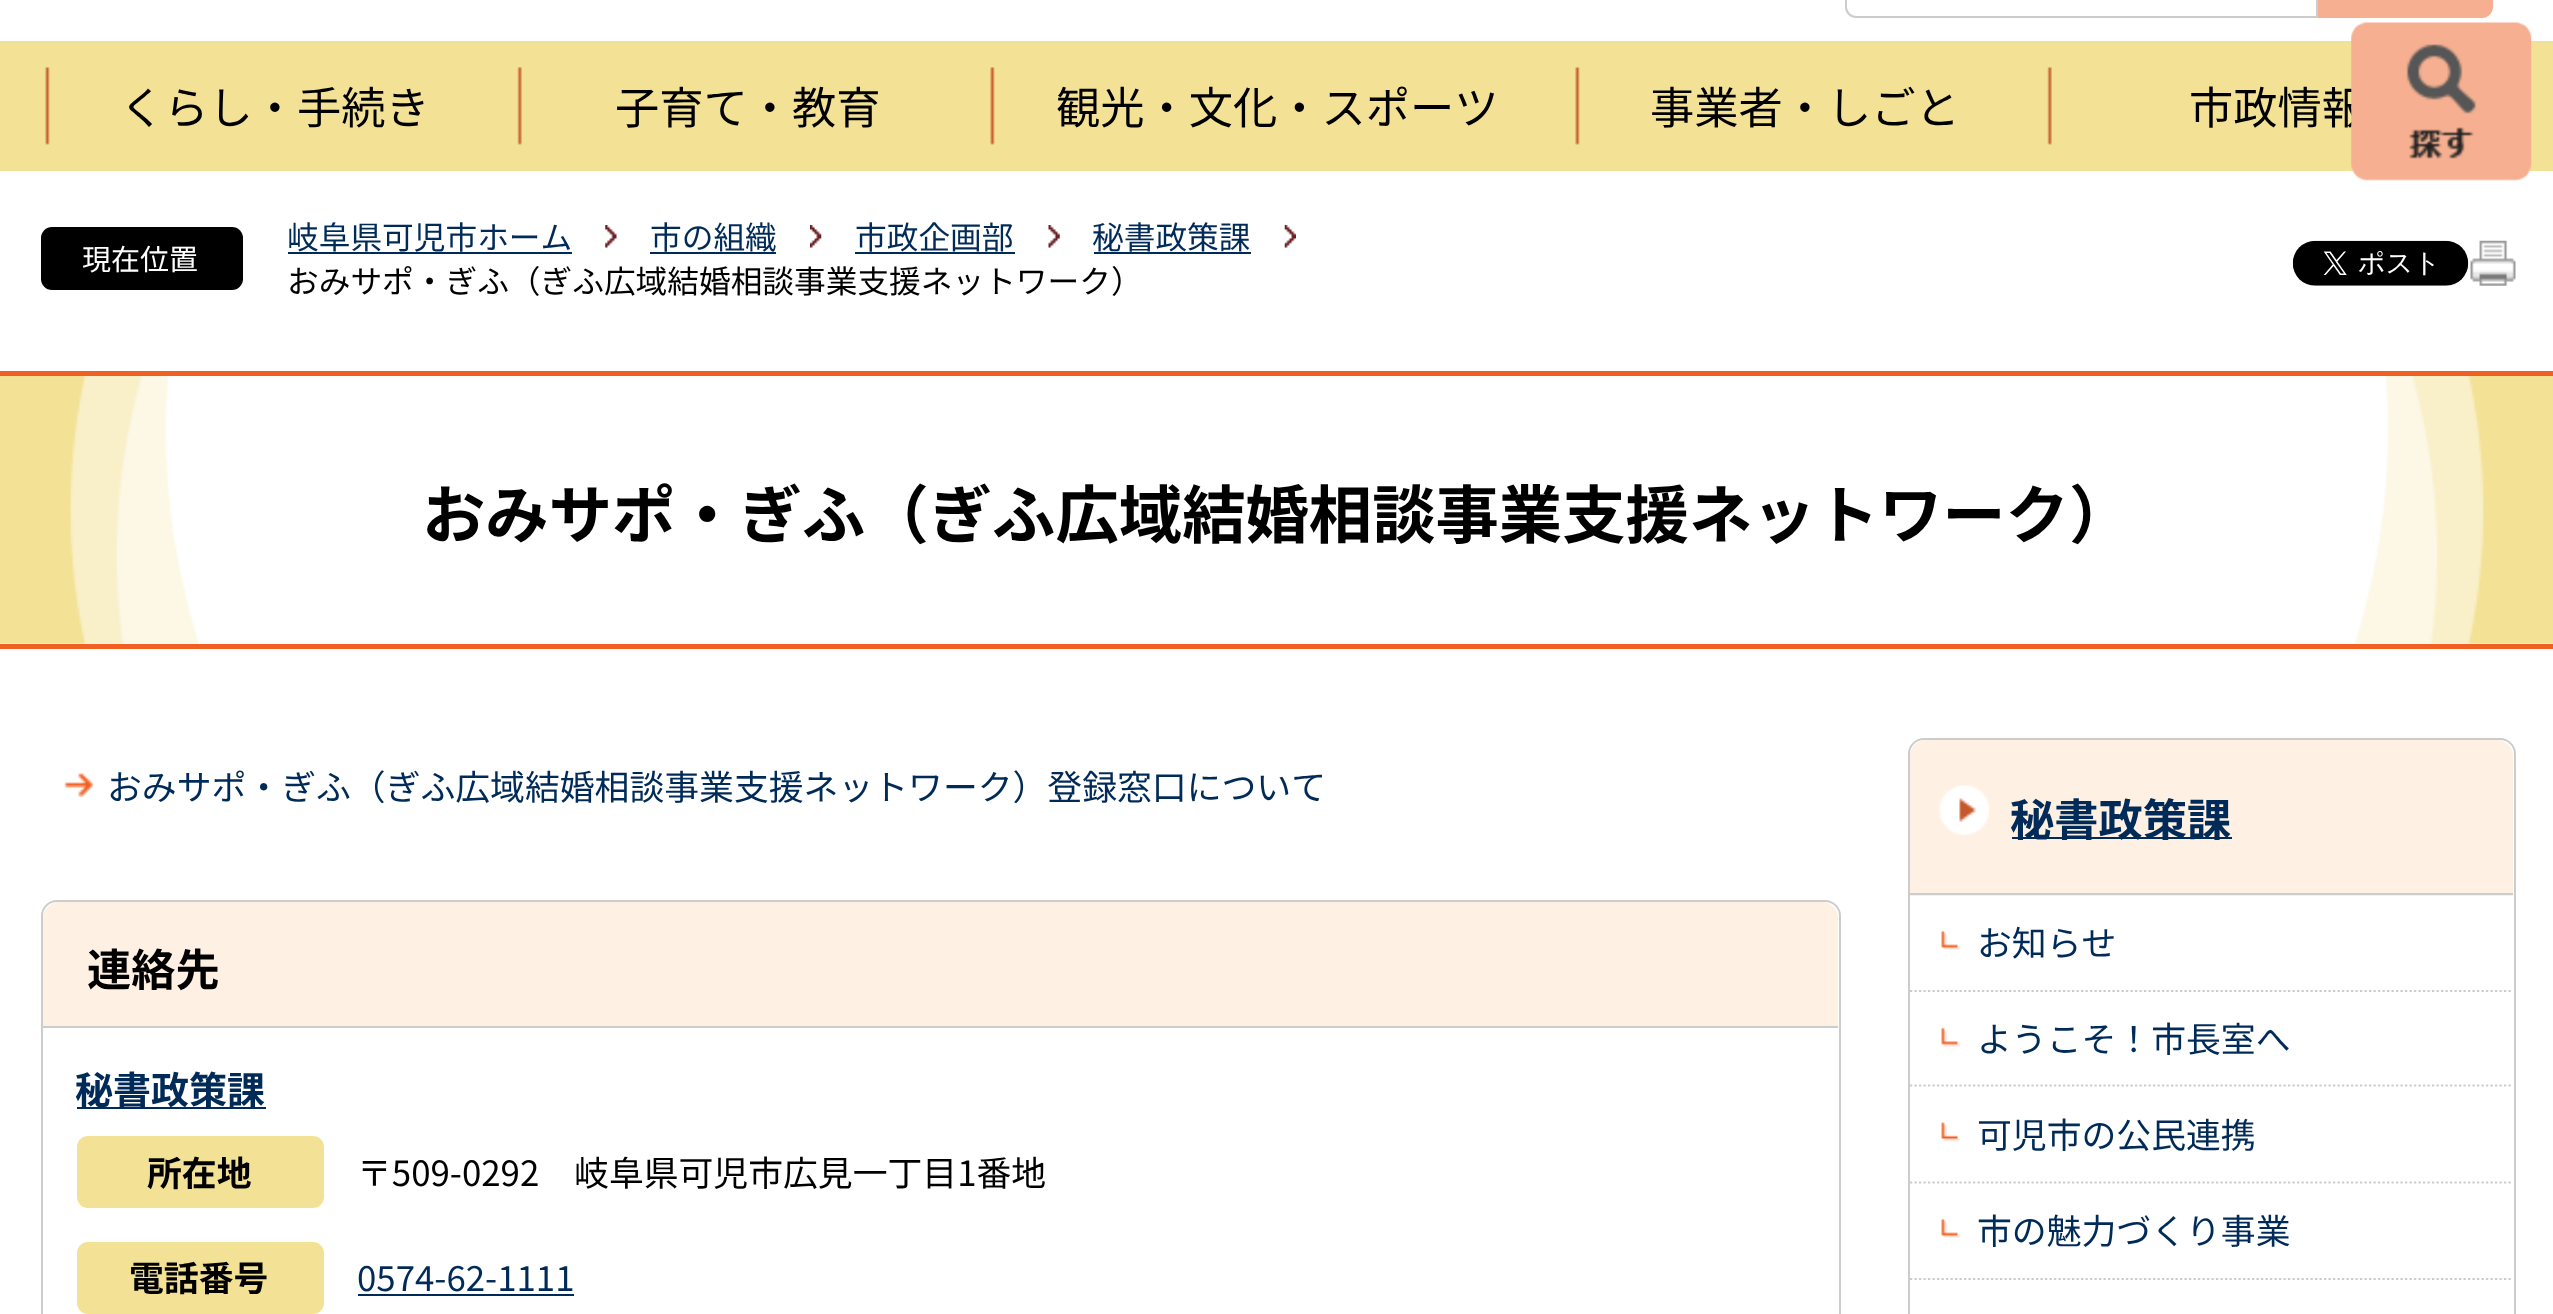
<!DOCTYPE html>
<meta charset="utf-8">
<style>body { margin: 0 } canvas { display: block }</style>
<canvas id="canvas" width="2553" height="1314"></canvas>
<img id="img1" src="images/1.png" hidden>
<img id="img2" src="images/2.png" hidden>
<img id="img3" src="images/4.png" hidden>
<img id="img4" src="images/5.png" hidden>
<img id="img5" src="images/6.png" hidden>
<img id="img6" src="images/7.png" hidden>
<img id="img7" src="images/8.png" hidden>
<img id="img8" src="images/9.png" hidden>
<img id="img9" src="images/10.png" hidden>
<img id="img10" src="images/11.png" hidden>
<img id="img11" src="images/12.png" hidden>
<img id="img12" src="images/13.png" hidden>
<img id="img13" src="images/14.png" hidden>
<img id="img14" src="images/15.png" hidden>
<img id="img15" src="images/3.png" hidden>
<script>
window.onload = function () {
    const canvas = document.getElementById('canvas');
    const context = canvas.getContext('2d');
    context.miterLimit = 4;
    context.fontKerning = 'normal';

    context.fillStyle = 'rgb(255, 255, 255)';
    context.fillRect(0, 0, 2553, 1314);
    context.beginPath();
    context.moveTo(1856, -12);
    context.lineTo(2317, -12);
    context.lineTo(2317, 17);
    context.lineTo(1856, 17);
    context.bezierCurveTo(1850.5, 17, 1846, 12.5, 1846, 7);
    context.lineTo(1846, -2);
    context.bezierCurveTo(1846, -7.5, 1850.5, -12, 1856, -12);
    context.closePath();
    context.strokeStyle = 'rgb(204, 204, 204)';
    context.lineWidth = 2;
    context.stroke();
    context.fillStyle = 'rgb(246, 176, 145)';
    context.beginPath();
    context.moveTo(2318, -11);
    context.lineTo(2482, -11);
    context.bezierCurveTo(2488, -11, 2493, -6, 2493, 0);
    context.lineTo(2493, 7);
    context.bezierCurveTo(2493, 13, 2488, 18, 2482, 18);
    context.lineTo(2318, 18);
    context.closePath();
    context.fill();
    context.fillStyle = 'rgb(243, 226, 149)';
    context.fillRect(0, 41, 2553, 130);
    context.drawImage(document.getElementById('img1'), 45, 67, 5, 78);
    context.drawImage(document.getElementById('img2'), 517, 67, 5, 78);
    context.drawImage(document.getElementById('img1'), 990, 67, 5, 78);
    context.drawImage(document.getElementById('img1'), 1575, 67, 5, 78);
    context.drawImage(document.getElementById('img2'), 2047, 67, 5, 78);
    context.fillStyle = 'rgb(0, 0, 0)';
    context.beginPath();
    context.roundRect(41, 227, 202, 63, 11);
    context.fill();
    context.fillStyle = 'rgb(0, 43, 89)';
    context.fillRect(288, 252, 284, 2);
    context.drawImage(document.getElementById('img3'), 605, 225, 12, 23);
    context.fillRect(650, 252, 126, 2);
    context.drawImage(document.getElementById('img4'), 810, 225, 12, 23);
    context.fillRect(855, 252, 160, 2);
    context.drawImage(document.getElementById('img5'), 1048, 225, 12, 23);
    context.fillRect(1094, 252, 157, 2);
    context.drawImage(document.getElementById('img6'), 1284, 225, 12, 23);
    context.drawImage(document.getElementById('img7'), 2292, 240, 177, 46);
    context.drawImage(document.getElementById('img8'), 2470, 240, 46, 46);
    context.drawImage(document.getElementById('img9'), 0, 376, 2553, 268);
    context.fillStyle = 'rgb(241, 96, 34)';
    context.fillRect(0, 371, 2553, 5);
    context.fillRect(0, 644, 2553, 5);
    context.drawImage(document.getElementById('img10'), 64, 772, 29, 26);
    context.beginPath();
    context.roundRect(42, 901, 1798, 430, 15);
    context.stroke();
    context.fillStyle = 'rgb(254, 241, 227)';
    context.beginPath();
    context.roundRect(43, 902, 1795, 126, [16, 16, 0, 0]);
    context.fill();
    context.fillStyle = 'rgb(204, 204, 204)';
    context.fillRect(43, 1026, 1795, 2);
    context.fillStyle = 'rgb(0, 43, 89)';
    context.fillRect(77, 1107, 189, 2);
    context.fillStyle = 'rgb(243, 226, 149)';
    context.beginPath();
    context.roundRect(77, 1136, 247, 72, 11);
    context.fill();
    context.beginPath();
    context.roundRect(77, 1242, 247, 72, 11);
    context.fill();
    context.fillStyle = 'rgb(0, 43, 89)';
    context.fillRect(358, 1294, 216, 2);
    context.beginPath();
    context.roundRect(1909, 739, 606, 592, 15);
    context.stroke();
    context.fillStyle = 'rgb(254, 241, 227)';
    context.beginPath();
    context.roundRect(1910, 740, 603, 156, [16, 16, 0, 0]);
    context.fill();
    context.drawImage(document.getElementById('img11'), 1939, 785, 51, 51);
    context.fillStyle = 'rgb(204, 204, 204)';
    context.fillRect(1910, 893, 603, 2);
    context.fillStyle = 'rgb(0, 43, 89)';
    context.fillRect(2012, 837, 220, 2);
    context.beginPath();
    context.moveTo(1910, 991);
    context.lineTo(2513, 991);
    context.lineWidth = 2.2;
    context.setLineDash([2.25, 2.25]);
    context.stroke();
    context.drawImage(document.getElementById('img12'), 1941, 931, 20, 19);
    context.beginPath();
    context.moveTo(1910, 1085.5);
    context.lineTo(2513, 1085.5);
    context.stroke();
    context.drawImage(document.getElementById('img13'), 1941, 1027, 20, 20);
    context.beginPath();
    context.moveTo(1910, 1182.5);
    context.lineTo(2513, 1182.5);
    context.stroke();
    context.drawImage(document.getElementById('img14'), 1941, 1122, 20, 20);
    context.beginPath();
    context.moveTo(1910, 1279);
    context.lineTo(2513, 1279);
    context.stroke();
    context.drawImage(document.getElementById('img12'), 1941, 1219, 20, 19);
    context.font = '44.25px Noto Sans JP';
    context.fillStyle = 'rgb(0, 0, 0)';
    context.fillText('くらし・手続き', 120, 124);
    context.fillText('子育て・教育', 615, 124);
    context.fillText('観光・文化・スポーツ', 1056, 124);
    context.fillText('事業者・しごと', 1650, 124);
    context.fillText('市政情報', 2189, 124);
    context.drawImage(document.getElementById('img15'), 2351, 22, 181, 159);
    context.font = '29px Noto Sans JP';
    context.fillStyle = 'rgb(255, 255, 255)';
    context.fillText('現在位置', 82, 270);
    context.font = '31.7px Noto Sans JP';
    context.fillStyle = 'rgb(0, 43, 89)';
    context.fillText('岐阜県可児市ホーム', 287, 249);
    context.fillText('市の組織', 650, 249);
    context.fillText('市政企画部', 855, 249);
    context.fillText('秘書政策課', 1092, 249);
    context.fillStyle = 'rgb(0, 0, 0)';
    context.fillText('おみサポ・ぎふ（ぎふ広域結婚相談事業支援ネットワーク）', 287, 293);
    context.font = 'bold 63.35px Noto Sans JP';
    context.fillText('おみサポ・ぎふ（ぎふ広域結婚相談事業支援ネットワーク）', 422, 538);
    context.font = '34.85px Noto Sans JP';
    context.fillStyle = 'rgb(0, 43, 89)';
    context.fillText('おみサポ・ぎふ（ぎふ広域結婚相談事業支援ネットワーク）登録窓口について', 107, 800);
    context.font = 'bold 44.25px Noto Sans JP';
    context.fillStyle = 'rgb(0, 0, 0)';
    context.fillText('連絡先', 87, 986);
    context.font = 'bold 38px Noto Sans JP';
    context.fillStyle = 'rgb(0, 43, 89)';
    context.fillText('秘書政策課', 75, 1104);
    context.font = 'bold 34.85px Noto Sans JP';
    context.fillStyle = 'rgb(0, 0, 0)';
    context.fillText('所在地', 147, 1186);
    context.font = '34.85px Noto Sans JP';
    context.fillText('〒509-0292　岐阜県可児市広見一丁目1番地', 357, 1186);
    context.font = 'bold 34.85px Noto Sans JP';
    context.fillText('電話番号', 129, 1291);
    context.font = '34.85px Noto Sans JP';
    context.fillStyle = 'rgb(0, 43, 89)';
    context.fillText('0574-62-1111', 357, 1291);
    context.font = 'bold 44.25px Noto Sans JP';
    context.fillText('秘書政策課', 2010, 836);
    context.font = '34.85px Noto Sans JP';
    context.fillText('お知らせ', 1977, 956);
    context.fillText('ようこそ！市長室へ', 1977, 1052);
    context.fillText('可児市の公民連携', 1977, 1148);
    context.fillText('市の魅力づくり事業', 1977, 1244);
};
</script>
